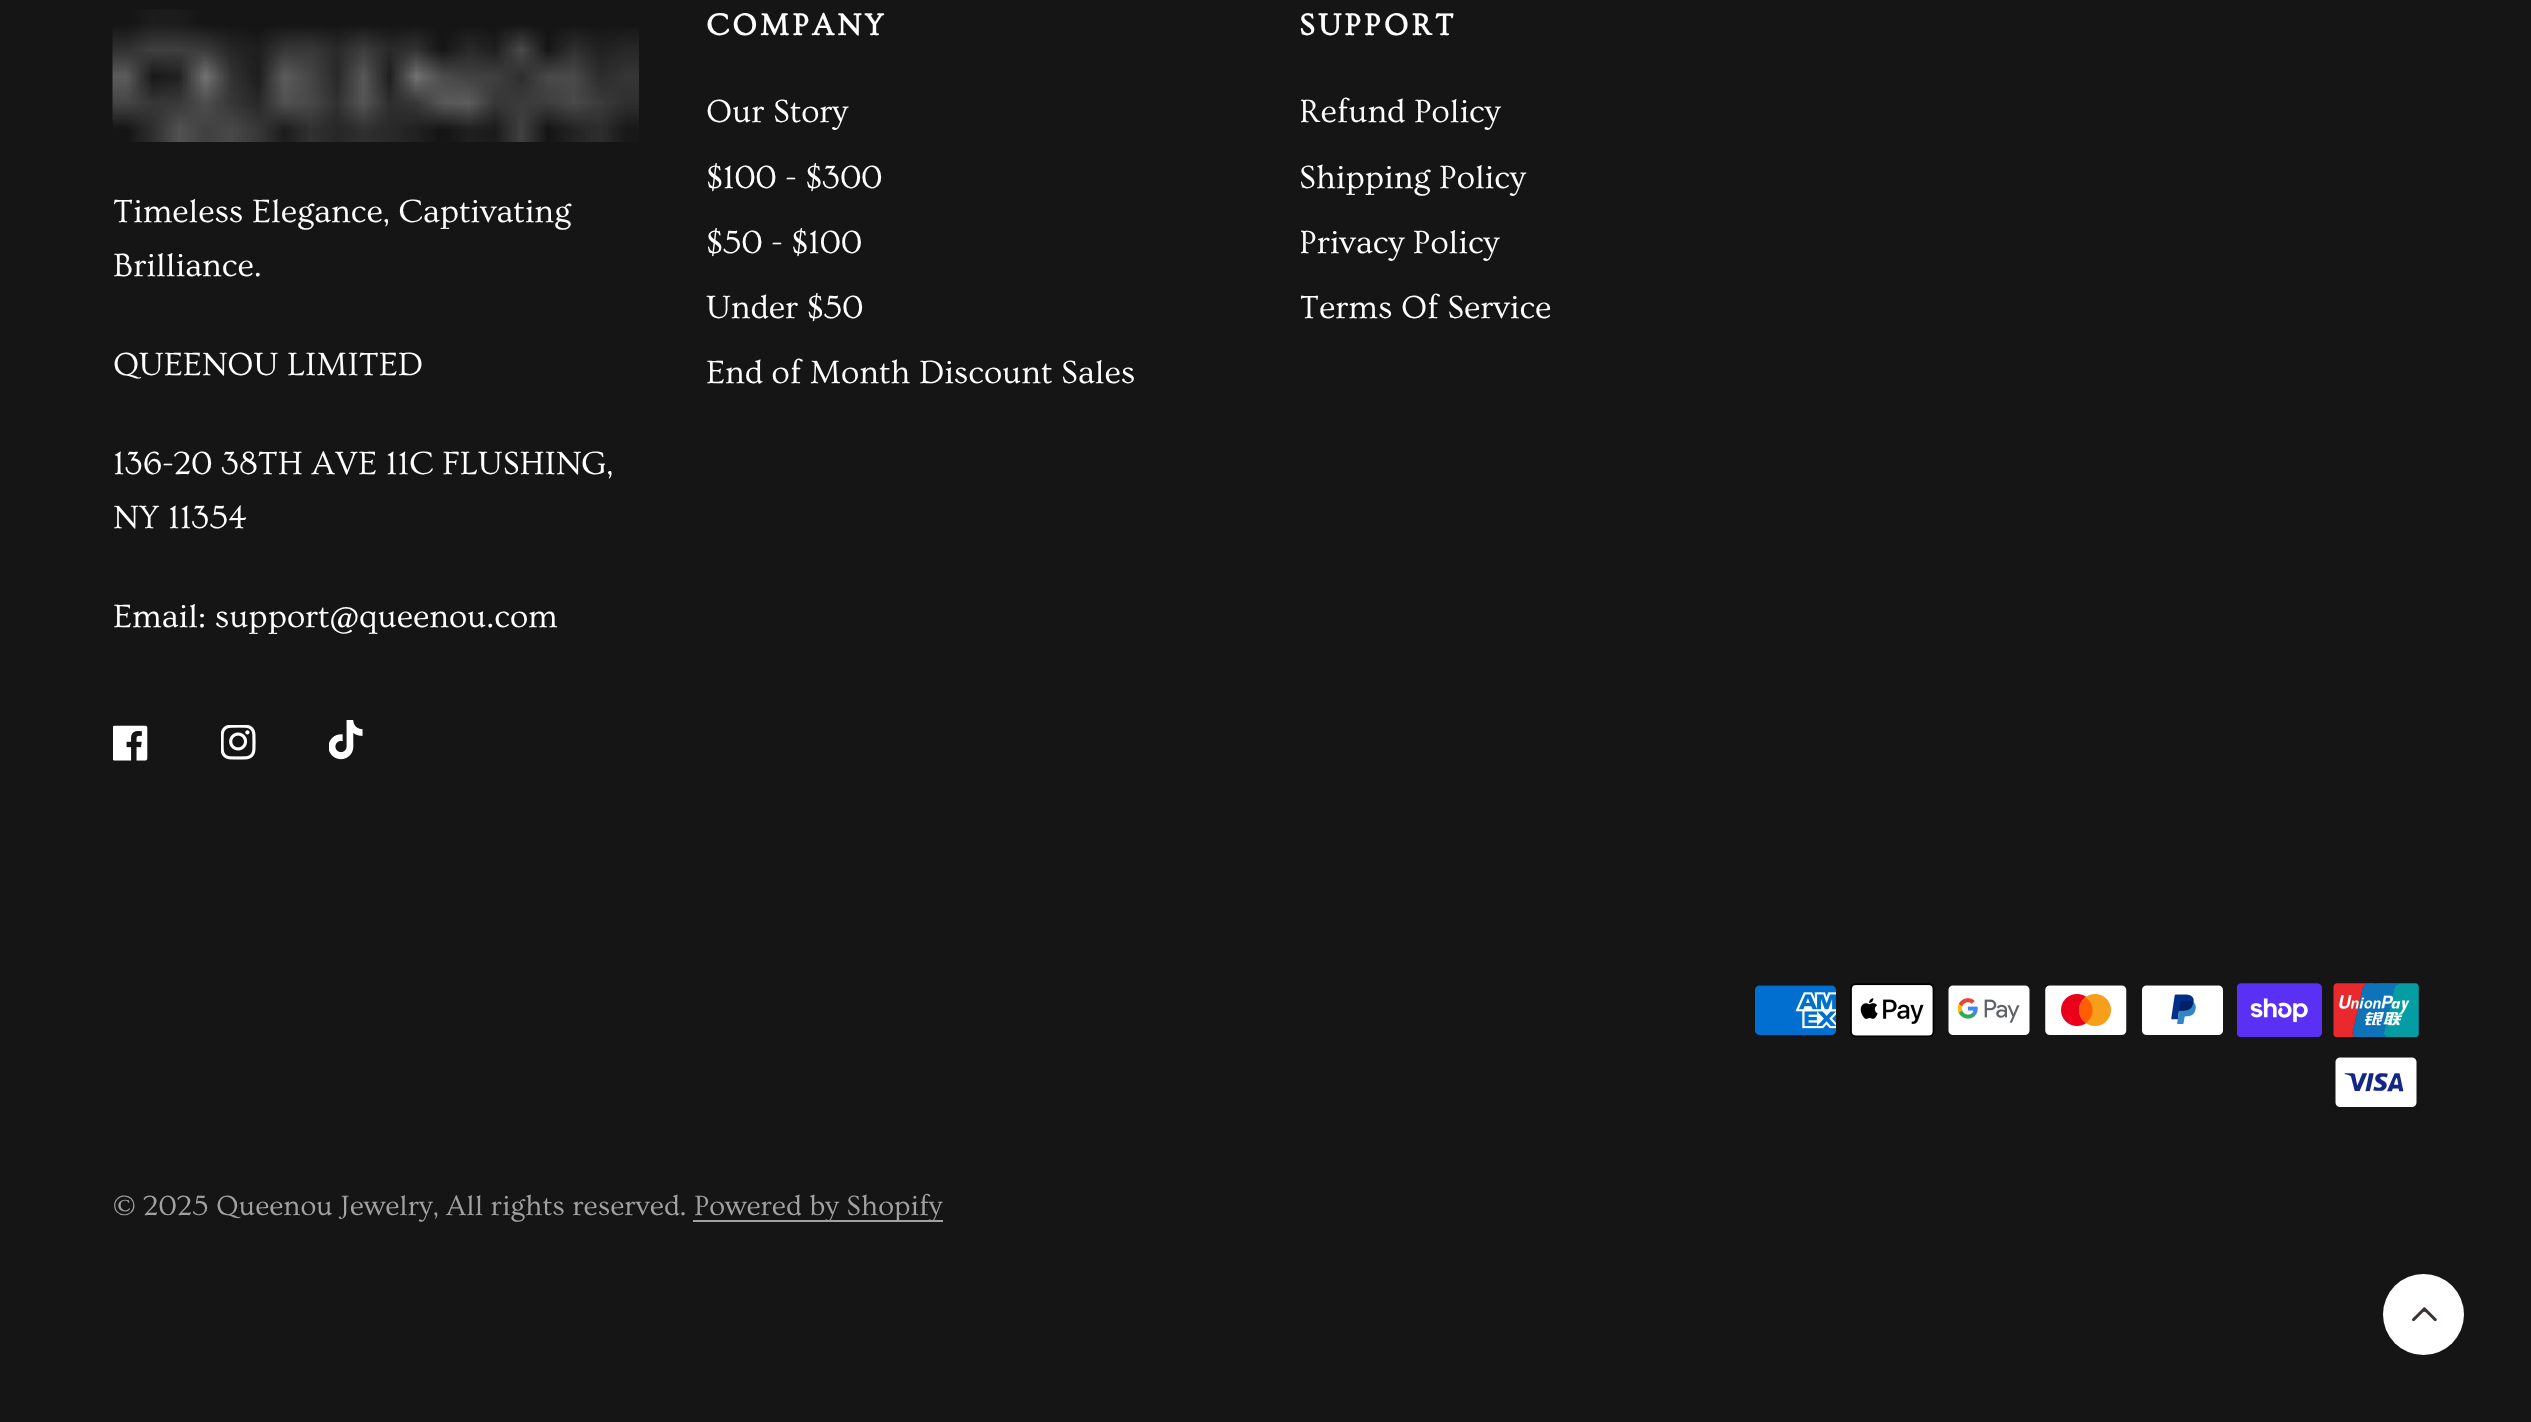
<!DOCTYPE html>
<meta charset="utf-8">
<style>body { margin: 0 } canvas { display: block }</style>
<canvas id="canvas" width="2531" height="1422"></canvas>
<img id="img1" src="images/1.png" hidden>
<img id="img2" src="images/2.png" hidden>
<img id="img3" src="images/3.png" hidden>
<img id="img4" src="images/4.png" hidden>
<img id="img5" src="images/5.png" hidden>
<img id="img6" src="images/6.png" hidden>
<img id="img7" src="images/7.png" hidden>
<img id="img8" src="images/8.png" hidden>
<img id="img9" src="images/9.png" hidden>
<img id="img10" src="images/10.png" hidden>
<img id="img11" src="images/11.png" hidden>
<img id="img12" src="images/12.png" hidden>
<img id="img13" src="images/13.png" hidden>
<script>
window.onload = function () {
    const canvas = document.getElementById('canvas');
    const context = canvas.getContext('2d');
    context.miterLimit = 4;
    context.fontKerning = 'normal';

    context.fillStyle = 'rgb(21, 21, 21)';
    context.fillRect(0, 0, 2531, 1422);
    context.drawImage(document.getElementById('img1'), 112, 9, 527, 133);
    context.drawImage(document.getElementById('img2'), 113, 725, 35, 36);
    context.drawImage(document.getElementById('img3'), 221, 725, 35, 35);
    context.drawImage(document.getElementById('img4'), 329, 720, 34, 40);
    context.drawImage(document.getElementById('img5'), 1755, 985, 81, 50);
    context.drawImage(document.getElementById('img6'), 1850, 983, 85, 54);
    context.drawImage(document.getElementById('img7'), 1948, 985, 82, 50);
    context.drawImage(document.getElementById('img8'), 2045, 985, 82, 50);
    context.drawImage(document.getElementById('img9'), 2142, 985, 81, 50);
    context.drawImage(document.getElementById('img10'), 2237, 983, 85, 54);
    context.drawImage(document.getElementById('img11'), 2333, 983, 86, 54);
    context.drawImage(document.getElementById('img12'), 2335, 1057, 82, 50);
    context.fillStyle = 'rgb(161, 161, 161)';
    context.fillRect(693, 1220, 250, 2);
    context.fillStyle = 'rgb(255, 255, 255)';
    context.beginPath();
    context.arc(2423.5, 1314.5, 40.5, 0, 2 * Math.PI);
    context.fill();
    context.drawImage(document.getElementById('img13'), 2412, 1307, 25, 15);
    context.letterSpacing = '3.25px';
    context.font = 'bold 31.5px Ovo';
    context.fillText('COMPANY', 706, 35);
    context.letterSpacing = '0px';
    context.font = '33.75px Ovo';
    context.fillText('Our Story', 706, 122);
    context.fillText('$100 - $300', 706, 188);
    context.fillText('$50 - $100', 706, 253);
    context.fillText('Under $50', 706, 318);
    context.fillText('End of Month Discount Sales', 706, 383);
    context.letterSpacing = '3.25px';
    context.font = 'bold 31.5px Ovo';
    context.fillText('SUPPORT', 1299, 35);
    context.save();
    context.beginPath();
    context.rect(1301, 86, 524, 249);
    context.clip();
    context.letterSpacing = '0px';
    context.font = '33.75px Ovo';
    context.fillText('Refund Policy', 1299, 122);
    context.restore();
    context.letterSpacing = '0px';
    context.font = '33.75px Ovo';
    context.fillText('Shipping Policy', 1299, 188);
    context.save();
    context.beginPath();
    context.rect(1301, 86, 524, 249);
    context.clip();
    context.fillText('Privacy Policy', 1299, 253);
    context.fillText('Terms Of Service', 1299, 318);
    context.restore();
    context.fillText('Timeless Elegance, Captivating', 113, 222);
    context.fillText('Brilliance.', 113, 276);
    context.fillText('QUEENOU LIMITED', 113, 375);
    context.fillText('136-20 38TH AVE 11C FLUSHING,', 113, 474);
    context.fillText('NY 11354', 113, 528);
    context.fillText('Email: support@queenou.com', 113, 627);
    context.font = '29.25px Ovo';
    context.fillStyle = 'rgb(161, 161, 161)';
    context.fillText('© 2025 Queenou Jewelry, All rights reserved.', 113, 1215);
    context.fillText('Powered by Shopify', 694, 1215);
};
</script>
